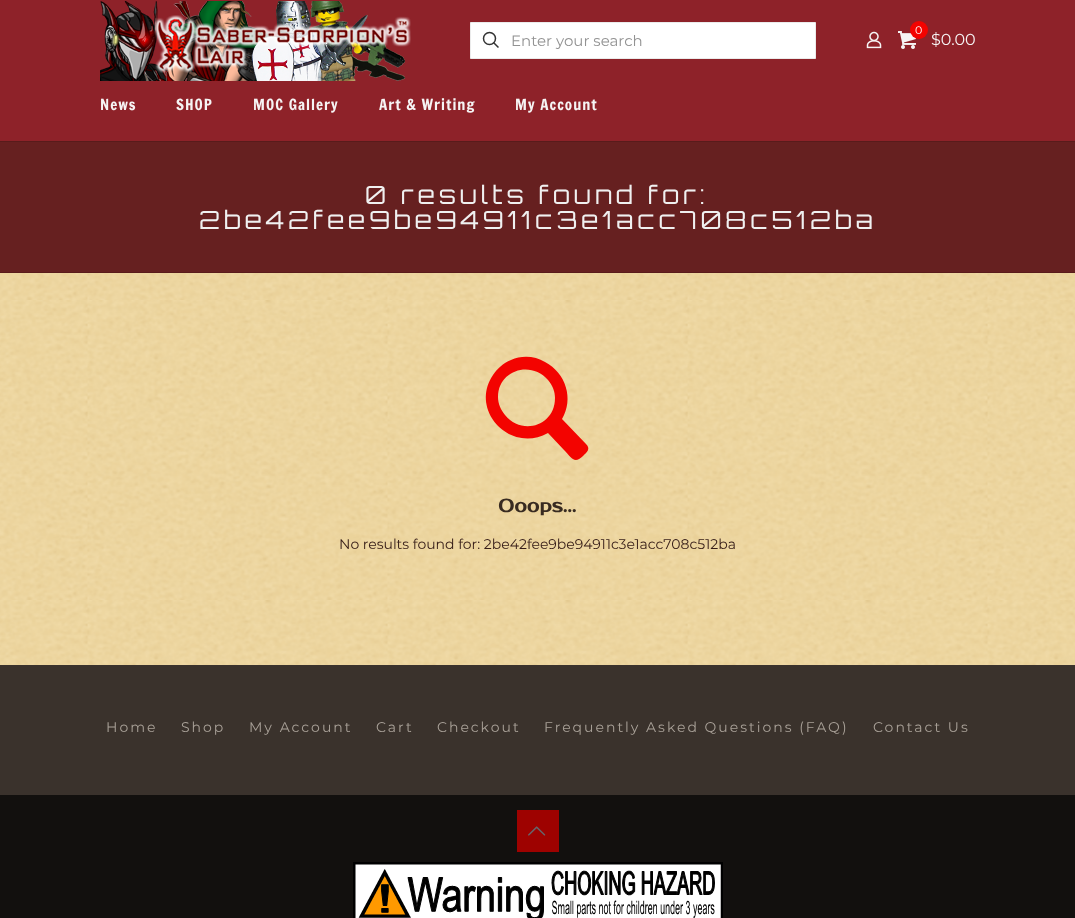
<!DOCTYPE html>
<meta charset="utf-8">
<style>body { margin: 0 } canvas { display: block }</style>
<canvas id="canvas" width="1075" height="918"></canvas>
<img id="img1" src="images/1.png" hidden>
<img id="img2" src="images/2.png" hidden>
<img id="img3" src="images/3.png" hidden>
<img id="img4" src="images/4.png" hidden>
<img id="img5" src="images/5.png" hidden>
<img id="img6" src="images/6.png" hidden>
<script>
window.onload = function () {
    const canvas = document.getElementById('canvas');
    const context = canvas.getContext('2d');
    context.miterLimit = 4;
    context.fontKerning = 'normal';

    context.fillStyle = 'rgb(255, 255, 255)';
    context.fillRect(0, 0, 1075, 918);
    context.drawImage(document.getElementById('img1'), 0, 273, 1075, 392);
    context.fillStyle = 'rgb(142, 34, 41)';
    context.fillRect(0, 0, 1075, 141);
    context.drawImage(document.getElementById('img2'), 100, 1, 311, 80);
    context.fillStyle = 'rgb(255, 255, 255)';
    context.beginPath();
    context.rect(470.5, 22.5, 345, 36);
    context.fill();
    context.strokeStyle = 'rgb(235, 235, 235)';
    context.stroke();
    context.beginPath();
    context.arc(489.5, 38.5, 6, 0, 2 * Math.PI);
    context.strokeStyle = 'rgb(51, 51, 51)';
    context.lineWidth = 1.5;
    context.stroke();
    context.beginPath();
    context.moveTo(493.5, 42.5);
    context.lineTo(498.5, 47.5);
    context.stroke();
    context.drawImage(document.getElementById('img3'), 866, 31, 16, 18);
    context.drawImage(document.getElementById('img4'), 898, 31, 18, 18);
    context.fillStyle = 'rgb(243, 3, 0)';
    context.beginPath();
    context.arc(919, 30, 9, 0, 2 * Math.PI);
    context.fill();
    context.fillStyle = 'rgb(102, 32, 32)';
    context.fillRect(0, 142, 1075, 130);
    context.fillStyle = 'rgb(89, 27, 27)';
    context.fillRect(0, 141, 1075, 1);
    context.fillRect(0, 272, 1075, 1);
    context.fillStyle = 'rgb(243, 3, 0)';
    context.beginPath();
    context.moveTo(586, 444);
    context.bezierCurveTo(591, 449, 587, 452, 583, 456);
    context.bezierCurveTo(574, 465, 571, 457, 564, 450);
    context.lineTo(548, 433);
    context.bezierCurveTo(510, 454, 469, 410, 493, 375);
    context.bezierCurveTo(497, 369, 503, 363, 511, 360);
    context.bezierCurveTo(522, 355, 535, 356, 545, 362);
    context.bezierCurveTo(566, 373, 574, 399, 562, 419);
    context.closePath();
    context.moveTo(498, 397);
    context.bezierCurveTo(498, 404, 501, 410, 505, 415);
    context.bezierCurveTo(522, 436, 555, 426, 555, 398);
    context.bezierCurveTo(555, 392, 553, 386, 548, 380);
    context.bezierCurveTo(531, 360, 498, 370, 498, 397);
    context.closePath();
    context.fill();
    context.fillStyle = 'rgb(58, 50, 44)';
    context.fillRect(0, 665, 1075, 130);
    context.fillStyle = 'rgb(18, 16, 14)';
    context.fillRect(0, 795, 1075, 123);
    context.fillStyle = 'rgb(158, 2, 0)';
    context.fillRect(517, 810, 42, 42);
    context.drawImage(document.getElementById('img5'), 528, 826, 18, 10);
    context.drawImage(document.getElementById('img6'), 353, 862, 370, 56);
    context.font = '15px Montserrat';
    context.fillStyle = 'rgb(146, 146, 146)';
    context.fillText('Enter your search', 511, 46);
    context.font = '11px Montserrat';
    context.fillStyle = 'rgb(255, 255, 255)';
    context.fillText('0', 915, 34);
    context.font = '16px Montserrat';
    context.fillStyle = 'rgb(246, 244, 244)';
    context.fillText('$0.00', 931, 45);
    context.letterSpacing = '1px';
    context.font = '15px Francois One';
    context.fillText('News', 100, 110);
    context.fillText('SHOP', 176, 110);
    context.fillText('MOC Gallery', 253, 110);
    context.fillText('Art & Writing', 379, 110);
    context.fillText('My Account', 515, 110);
    context.letterSpacing = '4px';
    context.font = '25px Orbitron';
    context.fillStyle = 'rgb(240, 240, 240)';
    context.fillText('0 results found for:', 365, 204);
    context.fillText('2be42fee9be94911c3e1acc708c512ba', 199, 229);
    context.letterSpacing = '0px';
    context.font = 'bold 18px Prosto One';
    context.fillStyle = 'rgb(56, 43, 33)';
    context.fillText('Ooops...', 498, 512);
    context.font = '14px Montserrat';
    context.fillStyle = 'rgb(53, 28, 23)';
    context.fillText('No results found for: 2be42fee9be94911c3e1acc708c512ba', 339, 549);
    context.letterSpacing = '2px';
    context.fillStyle = 'rgb(169, 161, 152)';
    context.fillText('Home', 106, 732);
    context.fillText('Shop', 181, 732);
    context.fillText('My Account', 249, 732);
    context.fillText('Cart', 376, 732);
    context.fillText('Checkout', 437, 732);
    context.fillText('Frequently Asked Questions (FAQ)', 544, 732);
    context.fillText('Contact Us', 873, 732);
};
</script>
